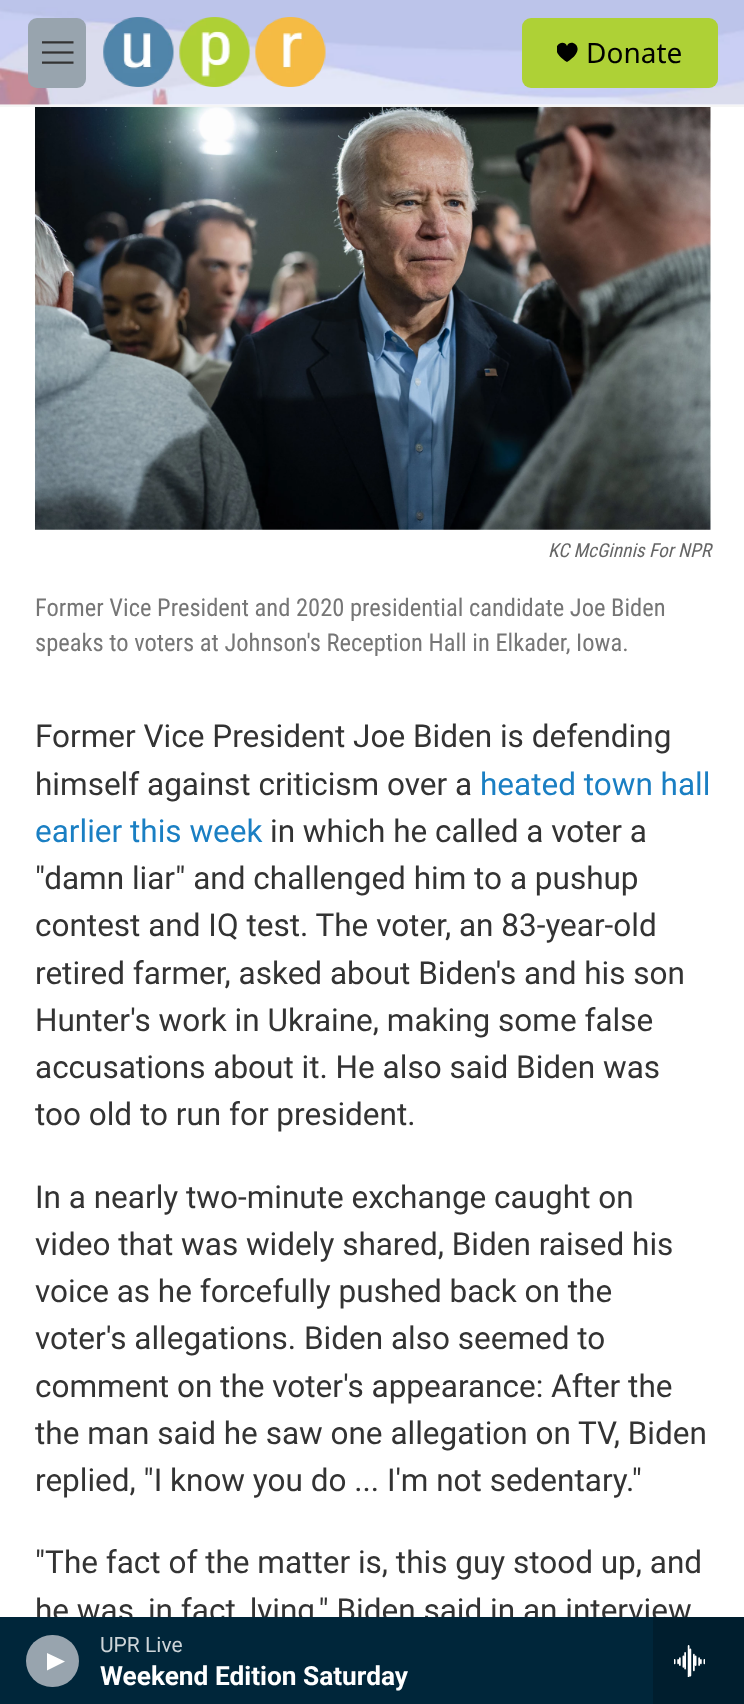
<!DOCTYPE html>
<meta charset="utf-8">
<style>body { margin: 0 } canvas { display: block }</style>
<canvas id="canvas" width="744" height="1704"></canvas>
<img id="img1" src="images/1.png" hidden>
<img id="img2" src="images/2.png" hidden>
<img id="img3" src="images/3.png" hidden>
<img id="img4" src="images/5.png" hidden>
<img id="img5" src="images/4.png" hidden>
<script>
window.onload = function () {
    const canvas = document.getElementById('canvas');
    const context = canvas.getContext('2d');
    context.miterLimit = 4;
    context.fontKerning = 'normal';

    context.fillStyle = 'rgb(255, 255, 255)';
    context.fillRect(0, 0, 744, 1704);
    context.fillStyle = 'rgb(245, 245, 245)';
    context.fillRect(0, 105, 744, 2);
    context.drawImage(document.getElementById('img1'), 0, 0, 744, 105);
    context.fillStyle = 'rgb(152, 164, 174)';
    context.beginPath();
    context.roundRect(28, 18, 58, 70, 9);
    context.fill();
    context.drawImage(document.getElementById('img2'), 42, 41, 32, 23);
    context.drawImage(document.getElementById('img3'), 103, 17, 223, 70);
    context.fillStyle = 'rgb(174, 209, 54)';
    context.beginPath();
    context.roundRect(522, 18, 196, 70, 9);
    context.fill();
    context.save();
    context.beginPath();
    context.rect(557, 42, 21, 21);
    context.clip();
    context.fillStyle = 'rgb(0, 0, 0)';
    context.beginPath();
    context.moveTo(567, 46);
    context.bezierCurveTo(563.5, 37, 545, 48.5, 567, 62);
    context.bezierCurveTo(589, 48.5, 570.5, 37, 567, 46);
    context.closePath();
    context.fill();
    context.restore();
    context.drawImage(document.getElementById('img4'), 35, 107, 676, 423);
    context.font = '28px Noto Sans';
    context.fillStyle = 'rgb(0, 0, 0)';
    context.fillText('Donate', 586, 63);
    context.font = 'italic 19.25px Roboto Condensed';
    context.fillStyle = 'rgb(102, 102, 102)';
    context.fillText('KC McGinnis For NPR', 548, 557);
    context.font = '24.5px Roboto Condensed';
    context.fillStyle = 'rgb(118, 118, 118)';
    context.fillText('Former Vice President and 2020 presidential candidate Joe Biden', 35, 616);
    context.fillText('speaks to voters at Johnson\'s Reception Hall in Elkader, Iowa.', 35, 651);
    context.font = '31.5px Roboto';
    context.fillStyle = 'rgb(51, 51, 51)';
    context.fillText('Former Vice President Joe Biden is defending', 35, 747);
    context.fillText('himself against criticism over a', 35, 795);
    context.fillStyle = 'rgb(26, 127, 195)';
    context.fillText('heated town hall', 480, 795);
    context.fillText('earlier this week', 35, 842);
    context.fillStyle = 'rgb(51, 51, 51)';
    context.fillText('in which he called a voter a', 270, 842);
    context.fillText('"damn liar" and challenged him to a pushup', 35, 889);
    context.fillText('contest and IQ test. The voter, an 83-year-old', 35, 936);
    context.fillText('retired farmer, asked about Biden\'s and his son', 35, 984);
    context.fillText('Hunter\'s work in Ukraine, making some false', 35, 1031);
    context.fillText('accusations about it. He also said Biden was', 35, 1078);
    context.fillText('too old to run for president.', 35, 1125);
    context.fillText('In a nearly two-minute exchange caught on', 35, 1208);
    context.fillText('video that was widely shared, Biden raised his', 35, 1255);
    context.fillText('voice as he forcefully pushed back on the', 35, 1302);
    context.fillText('voter\'s allegations. Biden also seemed to', 35, 1349);
    context.fillText('comment on the voter\'s appearance: After the', 35, 1397);
    context.fillText('the man said he saw one allegation on TV, Biden', 35, 1444);
    context.fillText('replied, "I know you do ... I\'m not sedentary."', 35, 1491);
    context.fillText('"The fact of the matter is, this guy stood up, and', 35, 1573);
    context.fillText('he was, in fact, lying," Biden said in an interview', 35, 1621);
    context.fillStyle = 'rgb(0, 38, 58)';
    context.fillRect(0, 1617, 653, 87);
    context.font = '21px Roboto';
    context.fillStyle = 'rgb(204, 212, 216)';
    context.fillText('UPR Live', 100, 1652);
    context.fillStyle = 'rgb(0, 30, 46)';
    context.fillRect(653, 1617, 91, 87);
    context.drawImage(document.getElementById('img5'), 674, 1645, 31, 32);
    context.font = 'bold 26.25px Roboto';
    context.fillStyle = 'rgb(255, 255, 255)';
    context.fillText('Weekend Edition Saturday', 100, 1685);
    context.fillStyle = 'rgb(152, 164, 174)';
    context.beginPath();
    context.roundRect(26, 1635, 53, 52, 26);
    context.fill();
    context.fillStyle = 'rgb(255, 255, 255)';
    context.beginPath();
    context.moveTo(47, 1653);
    context.lineTo(65, 1661.5);
    context.lineTo(47, 1670.5);
    context.closePath();
    context.fill();
};
</script>
